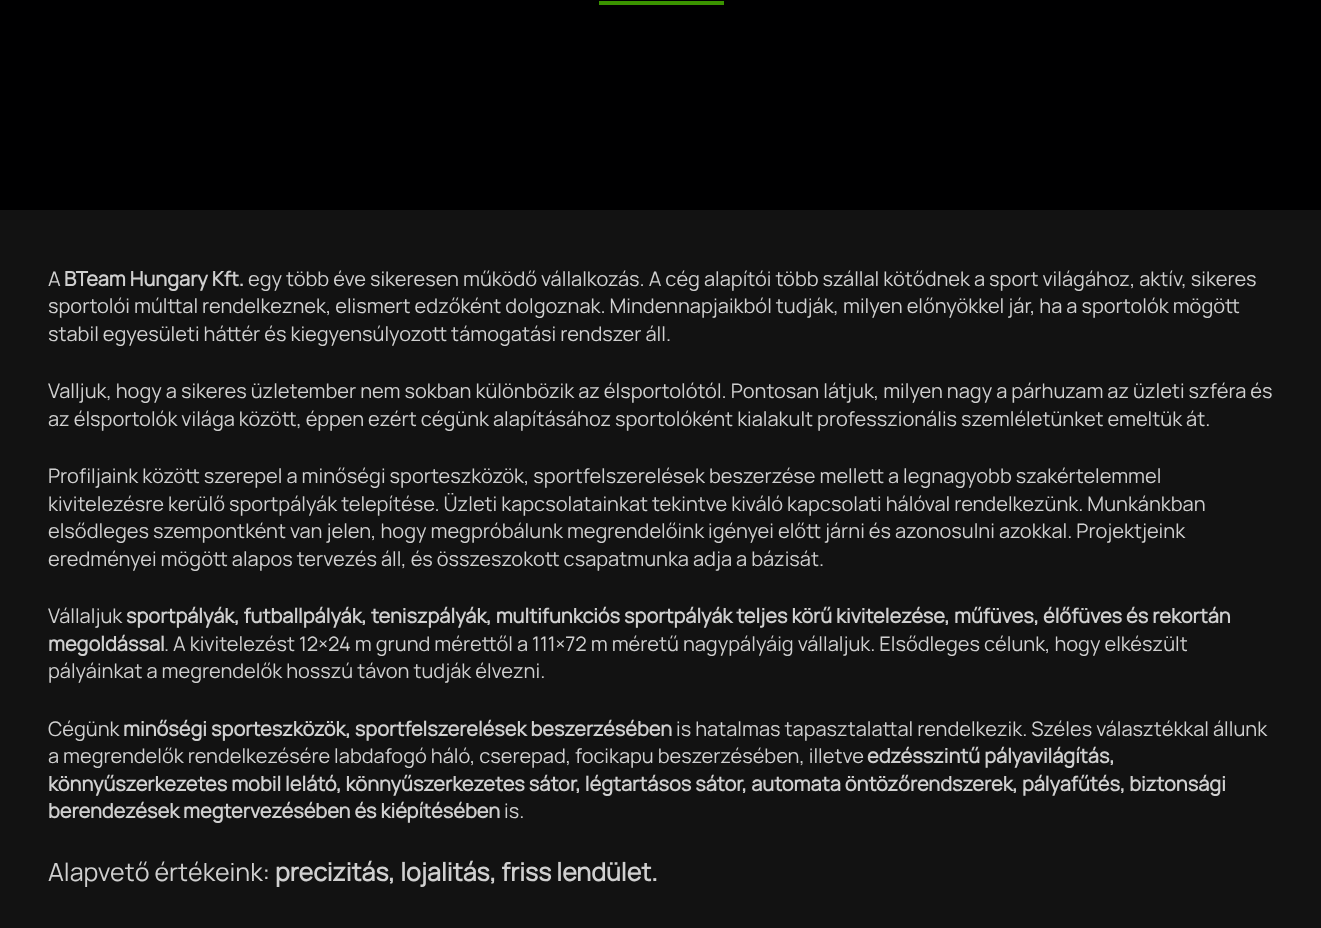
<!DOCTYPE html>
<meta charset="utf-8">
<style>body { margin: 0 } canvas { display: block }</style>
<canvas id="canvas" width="1321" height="928"></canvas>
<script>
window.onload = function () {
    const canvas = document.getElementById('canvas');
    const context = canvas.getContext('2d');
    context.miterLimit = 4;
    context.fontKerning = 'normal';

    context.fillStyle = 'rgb(0, 0, 1)';
    context.fillRect(0, 0, 1321, 928);
    context.fillStyle = 'rgb(58, 147, 0)';
    context.fillRect(599, 1, 125, 4);
    context.fillStyle = 'rgb(18, 18, 18)';
    context.fillRect(0, 210, 1321, 718);
    context.font = '20px Manrope';
    context.fillStyle = 'rgb(208, 208, 208)';
    context.fillText('A', 48, 286);
    context.font = 'bold 20px Manrope';
    context.fillText('BTeam Hungary Kft.', 64, 286);
    context.font = '20px Manrope';
    context.fillText('egy több éve sikeresen működő vállalkozás. A cég alapítói több szállal kötődnek a sport világához, aktív, sikeres', 248, 286);
    context.fillText('sportolói múlttal rendelkeznek, elismert edzőként dolgoznak. Mindennapjaikból tudják, milyen előnyökkel jár, ha a sportolók mögött', 48, 313);
    context.fillText('stabil egyesületi háttér és kiegyensúlyozott támogatási rendszer áll.', 48, 341);
    context.fillText('Valljuk, hogy a sikeres üzletember nem sokban különbözik az élsportolótól. Pontosan látjuk, milyen nagy a párhuzam az üzleti szféra és', 48, 398);
    context.fillText('az élsportolók világa között, éppen ezért cégünk alapításához sportolóként kialakult professzionális szemléletünket emeltük át.', 48, 426);
    context.fillText('Profiljaink között szerepel a minőségi sporteszközök, sportfelszerelések beszerzése mellett a legnagyobb szakértelemmel', 48, 483);
    context.fillText('kivitelezésre kerülő sportpályák telepítése. Üzleti kapcsolatainkat tekintve kiváló kapcsolati hálóval rendelkezünk. Munkánkban', 48, 511);
    context.fillText('elsődleges szempontként van jelen, hogy megpróbálunk megrendelőink igényei előtt járni és azonosulni azokkal. Projektjeink', 48, 538);
    context.fillText('eredményei mögött alapos tervezés áll, és összeszokott csapatmunka adja a bázisát.', 48, 566);
    context.fillText('Vállaljuk', 48, 623);
    context.font = 'bold 20px Manrope';
    context.fillText('sportpályák, futballpályák, teniszpályák, multifunkciós sportpályák teljes körű kivitelezése, műfüves, élőfüves és rekortán', 126, 623);
    context.fillText('megoldással', 48, 651);
    context.font = '20px Manrope';
    context.fillText('. A kivitelezést 12×24 m grund mérettől a 111×72 m méretű nagypályáig vállaljuk. Elsődleges célunk, hogy elkészült', 164, 651);
    context.fillText('pályáinkat a megrendelők hosszú távon tudják élvezni.', 48, 678);
    context.fillText('Cégünk', 48, 736);
    context.font = 'bold 20px Manrope';
    context.fillText('minőségi sporteszközök, sportfelszerelések beszerzésében', 123, 736);
    context.font = '20px Manrope';
    context.fillText('is hatalmas tapasztalattal rendelkezik. Széles választékkal állunk', 676, 736);
    context.fillText('a megrendelők rendelkezésére labdafogó háló, cserepad, focikapu beszerzésében, illetve', 48, 763);
    context.font = 'bold 20px Manrope';
    context.fillText('edzésszintű pályavilágítás,', 867, 763);
    context.fillText('könnyűszerkezetes mobil lelátó, könnyűszerkezetes sátor, légtartásos sátor, automata öntözőrendszerek, pályafűtés, biztonsági', 48, 791);
    context.fillText('berendezések megtervezésében és kiépítésében', 48, 818);
    context.font = '20px Manrope';
    context.fillText('is.', 504, 818);
    context.font = '25px Manrope';
    context.fillText('Alapvető értékeink:', 48, 881);
    context.font = 'bold 25px Manrope';
    context.fillText('precizitás, lojalitás, friss lendület.', 275, 881);
};
</script>
